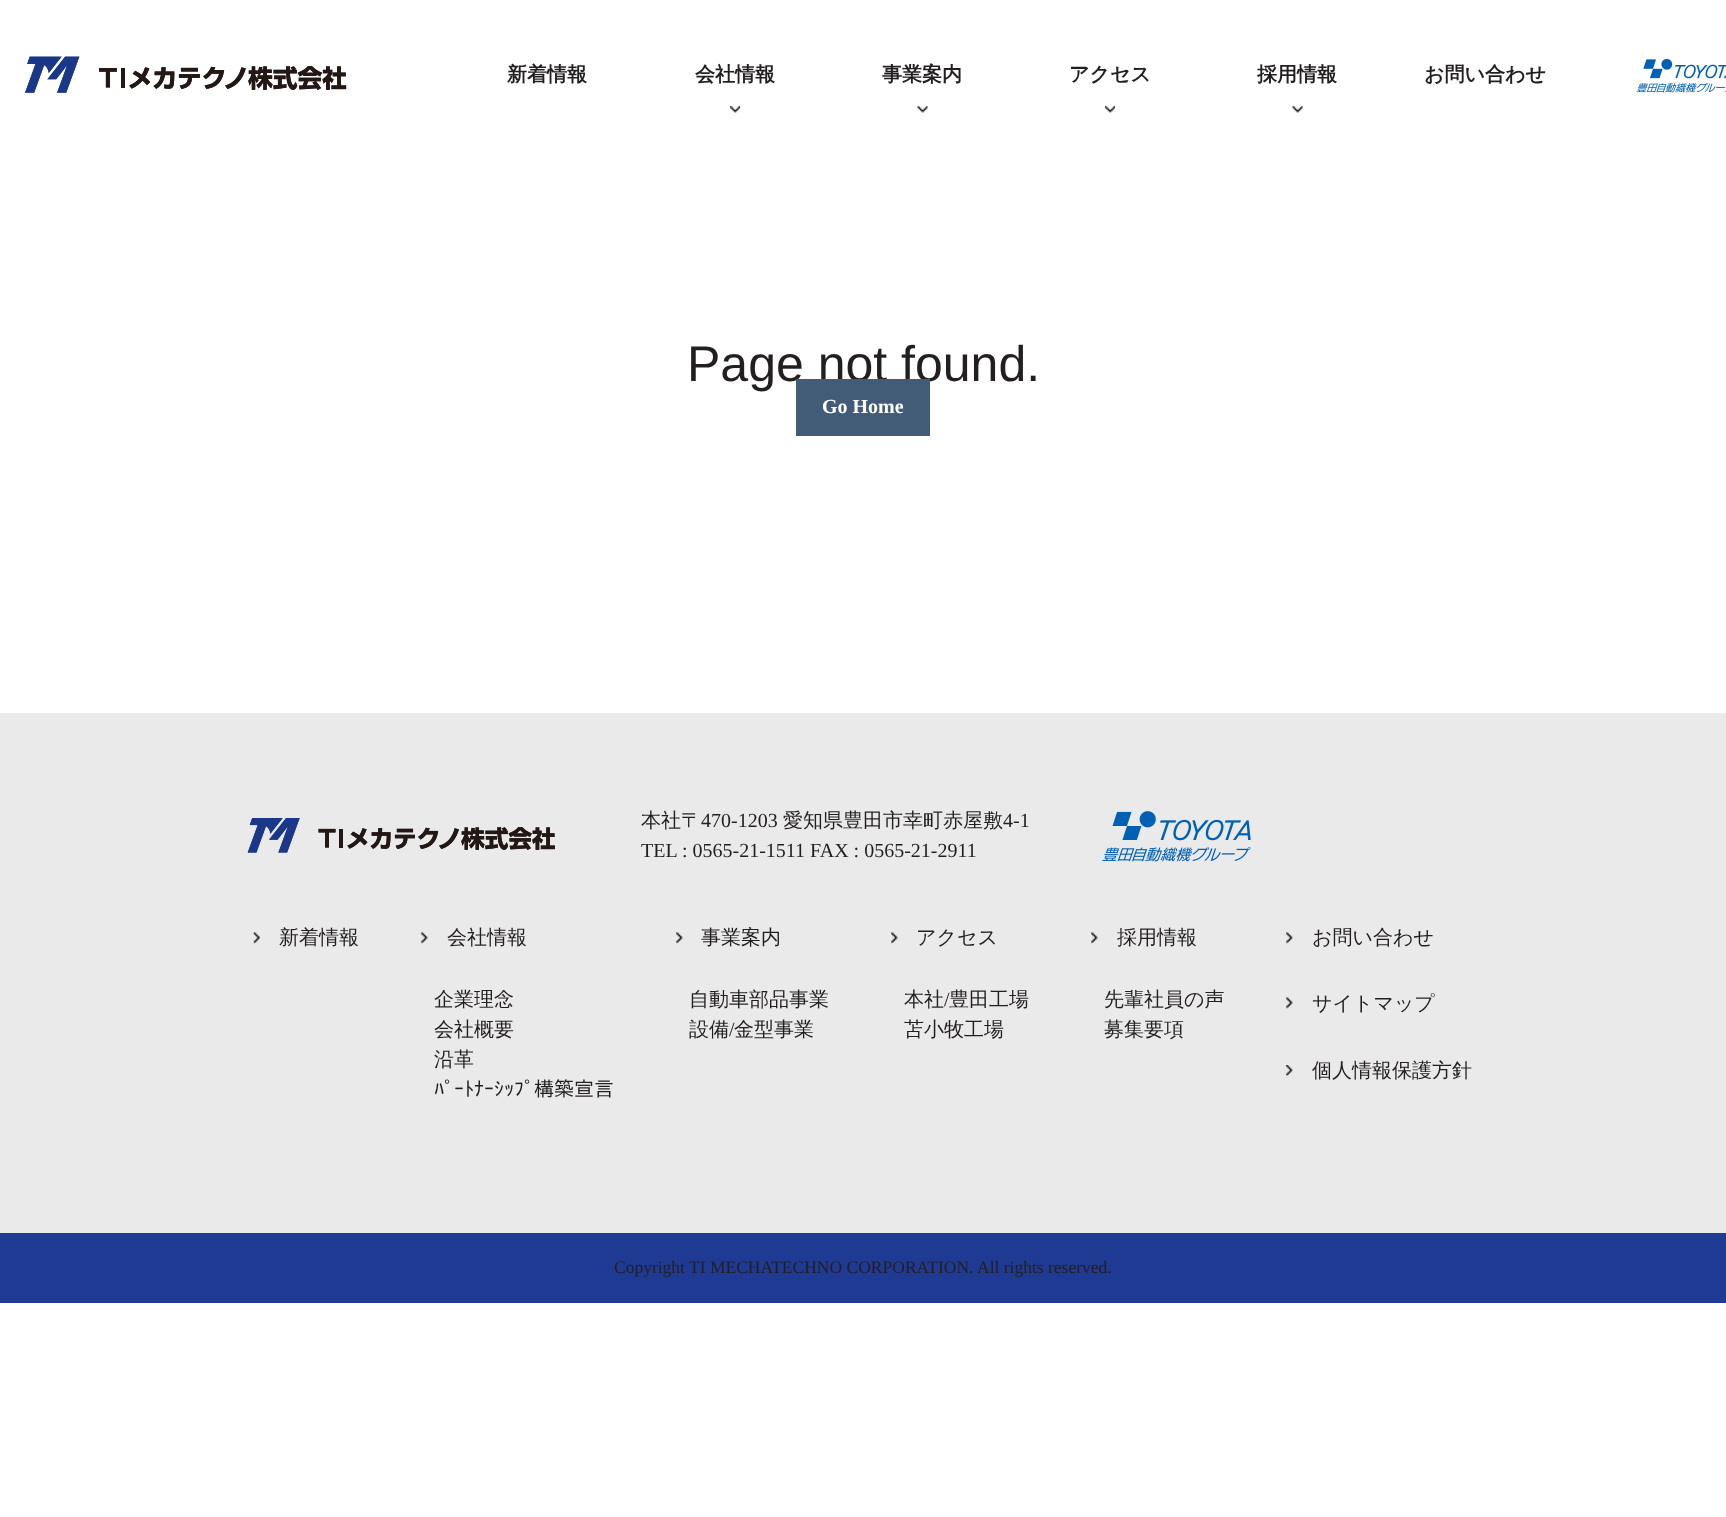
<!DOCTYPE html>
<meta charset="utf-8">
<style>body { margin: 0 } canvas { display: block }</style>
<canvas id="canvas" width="1726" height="1517"></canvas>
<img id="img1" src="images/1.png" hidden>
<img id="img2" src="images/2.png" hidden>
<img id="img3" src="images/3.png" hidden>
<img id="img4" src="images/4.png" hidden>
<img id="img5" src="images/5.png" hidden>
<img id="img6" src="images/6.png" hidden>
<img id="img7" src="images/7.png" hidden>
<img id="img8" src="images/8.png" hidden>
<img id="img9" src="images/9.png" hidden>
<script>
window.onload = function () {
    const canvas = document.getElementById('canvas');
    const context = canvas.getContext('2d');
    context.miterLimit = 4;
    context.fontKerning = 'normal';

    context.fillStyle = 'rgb(255, 255, 255)';
    context.fillRect(0, 0, 1726, 1517);
    context.drawImage(document.getElementById('img1'), 25, 56, 322, 37);
    context.drawImage(document.getElementById('img2'), 730, 106, 10, 7);
    context.drawImage(document.getElementById('img3'), 917, 106, 11, 7);
    context.drawImage(document.getElementById('img2'), 1105, 106, 10, 7);
    context.drawImage(document.getElementById('img3'), 1292, 106, 11, 7);
    context.drawImage(document.getElementById('img4'), 1636, 58, 90, 35);
    context.fillStyle = 'rgb(234, 234, 234)';
    context.fillRect(0, 713, 1726, 520);
    context.drawImage(document.getElementById('img5'), 247, 818, 308, 35);
    context.drawImage(document.getElementById('img6'), 1102, 811, 149, 51);
    context.drawImage(document.getElementById('img7'), 253, 932, 7, 12);
    context.drawImage(document.getElementById('img8'), 421, 932, 7, 12);
    context.drawImage(document.getElementById('img8'), 676, 932, 7, 12);
    context.drawImage(document.getElementById('img8'), 891, 932, 7, 12);
    context.drawImage(document.getElementById('img8'), 1091, 932, 7, 12);
    context.drawImage(document.getElementById('img8'), 1286, 932, 7, 12);
    context.drawImage(document.getElementById('img8'), 1286, 997, 7, 12);
    context.drawImage(document.getElementById('img9'), 1286, 1065, 7, 12);
    context.fillStyle = 'rgb(31, 58, 147)';
    context.fillRect(0, 1233, 1726, 70);
    context.font = 'bold 20px WenQuanYi Zen Hei';
    context.fillStyle = 'rgb(35, 31, 32)';
    context.fillText('新着情報', 507, 81);
    context.fillText('会社情報', 695, 81);
    context.fillText('事業案内', 882, 81);
    context.fillText('アクセス', 1069, 81);
    context.fillText('採用情報', 1257, 81);
    context.fillText('お問い合わせ', 1424, 81);
    context.font = '50px Liberation Sans';
    context.fillText('Page not found.', 687, 381);
    context.fillStyle = 'rgb(66, 91, 118)';
    context.fillRect(796, 379, 134, 57);
    context.font = 'bold 20px Liberation Serif';
    context.fillStyle = 'rgb(255, 255, 255)';
    context.fillText('Go Home', 822, 413);
    context.font = '500 20px WenQuanYi Zen Hei';
    context.fillStyle = 'rgb(35, 31, 32)';
    context.fillText('本社〒', 641, 827);
    context.font = '20px Liberation Serif';
    context.fillText('470-1203', 701, 827);
    context.font = '500 20px WenQuanYi Zen Hei';
    context.fillText('愛知県豊田市幸町赤屋敷', 783, 827);
    context.font = '20px Liberation Serif';
    context.fillText('4-1', 1003, 827);
    context.fillText('TEL : 0565-21-1511 FAX : 0565-21-2911', 641, 857);
    context.font = '500 20px WenQuanYi Zen Hei';
    context.fillText('新着情報', 279, 944);
    context.fillText('会社情報', 447, 944);
    context.fillText('企業理念', 434, 1006);
    context.fillText('会社概要', 434, 1036);
    context.fillText('沿革', 434, 1066);
    context.font = '20px IPAPGothic';
    context.fillText('ﾊﾟｰﾄﾅｰｼｯﾌﾟ構築宣言', 434, 1096);
    context.font = '500 20px WenQuanYi Zen Hei';
    context.fillText('事業案内', 701, 944);
    context.fillText('自動車部品事業', 689, 1006);
    context.fillText('設備', 689, 1036);
    context.font = '20px Liberation Serif';
    context.fillText('/', 729, 1036);
    context.font = '500 20px WenQuanYi Zen Hei';
    context.fillText('金型事業', 734, 1036);
    context.fillText('アクセス', 916, 944);
    context.fillText('本社', 904, 1006);
    context.font = '20px Liberation Serif';
    context.fillText('/', 944, 1006);
    context.font = '500 20px WenQuanYi Zen Hei';
    context.fillText('豊田工場', 949, 1006);
    context.fillText('苫小牧工場', 904, 1036);
    context.fillText('採用情報', 1117, 944);
    context.fillText('先輩社員の声', 1104, 1006);
    context.fillText('募集要項', 1104, 1036);
    context.fillText('お問い合わせ', 1312, 944);
    context.fillText('サイトマップ', 1312, 1010);
    context.fillText('個人情報保護方針', 1312, 1077);
    context.font = '17.5px Liberation Serif';
    context.fillText('Copyright TI MECHATECHNO CORPORATION.', 614, 1273);
    context.fillText('All rights reserved.', 977, 1273);
};
</script>
